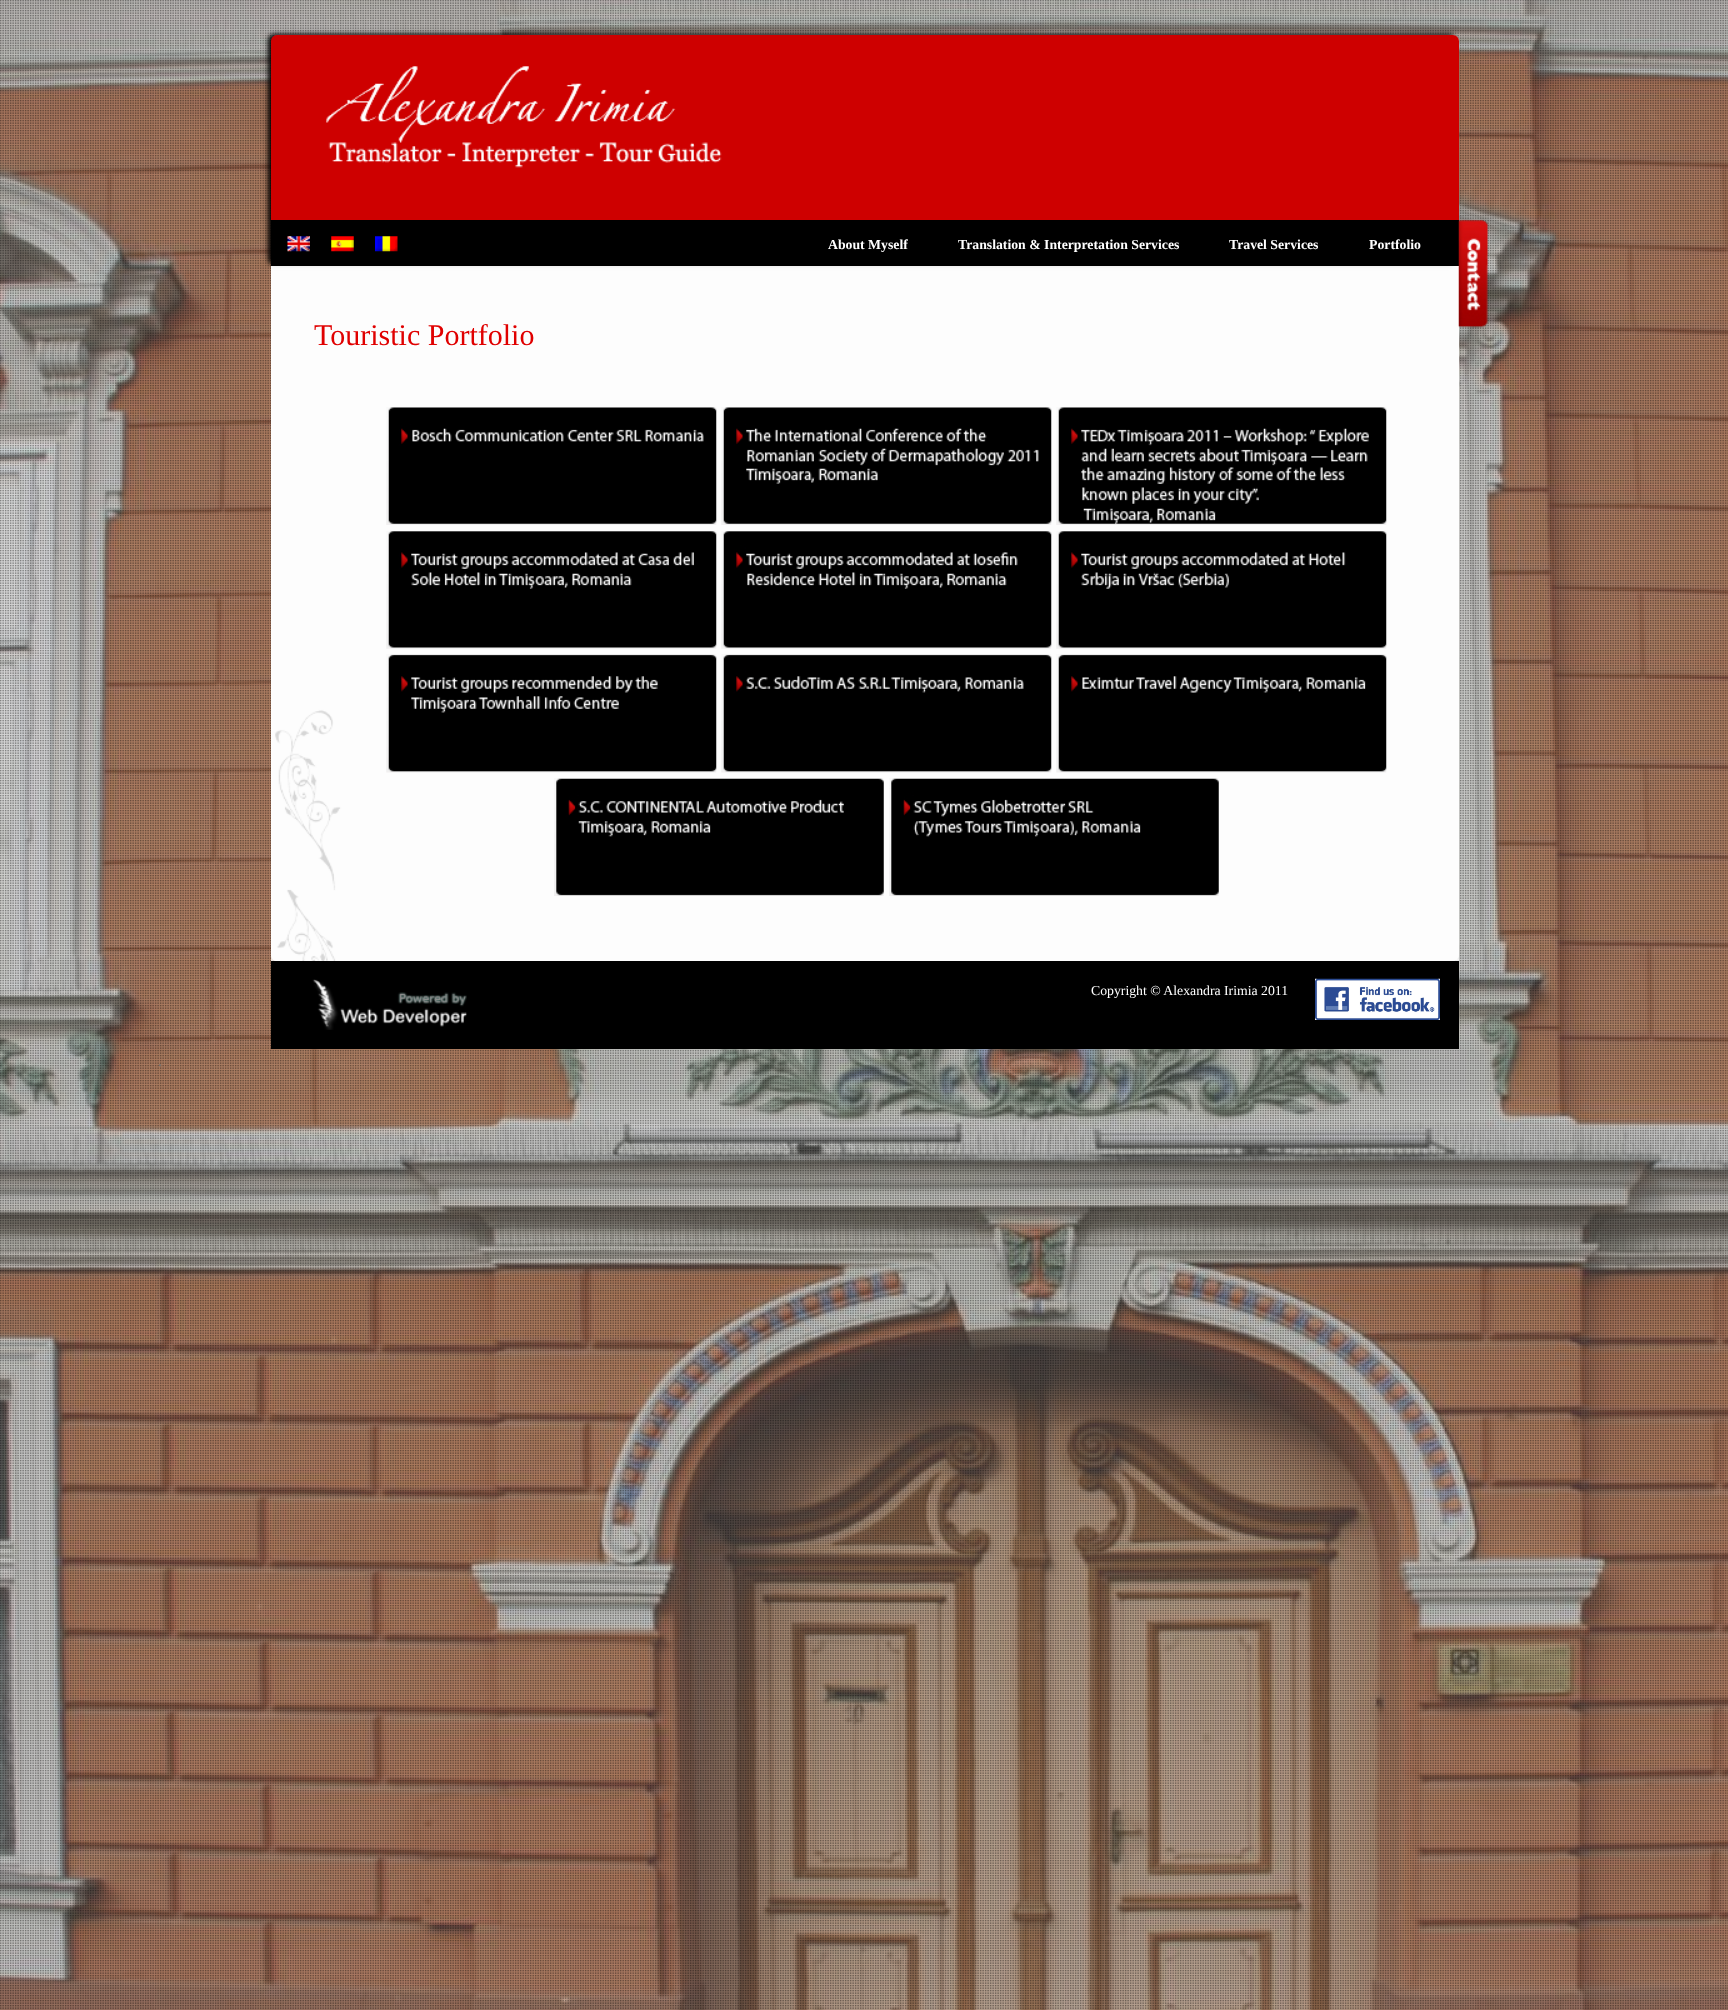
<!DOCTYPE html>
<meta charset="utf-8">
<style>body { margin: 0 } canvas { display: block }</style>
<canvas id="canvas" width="1728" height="2010"></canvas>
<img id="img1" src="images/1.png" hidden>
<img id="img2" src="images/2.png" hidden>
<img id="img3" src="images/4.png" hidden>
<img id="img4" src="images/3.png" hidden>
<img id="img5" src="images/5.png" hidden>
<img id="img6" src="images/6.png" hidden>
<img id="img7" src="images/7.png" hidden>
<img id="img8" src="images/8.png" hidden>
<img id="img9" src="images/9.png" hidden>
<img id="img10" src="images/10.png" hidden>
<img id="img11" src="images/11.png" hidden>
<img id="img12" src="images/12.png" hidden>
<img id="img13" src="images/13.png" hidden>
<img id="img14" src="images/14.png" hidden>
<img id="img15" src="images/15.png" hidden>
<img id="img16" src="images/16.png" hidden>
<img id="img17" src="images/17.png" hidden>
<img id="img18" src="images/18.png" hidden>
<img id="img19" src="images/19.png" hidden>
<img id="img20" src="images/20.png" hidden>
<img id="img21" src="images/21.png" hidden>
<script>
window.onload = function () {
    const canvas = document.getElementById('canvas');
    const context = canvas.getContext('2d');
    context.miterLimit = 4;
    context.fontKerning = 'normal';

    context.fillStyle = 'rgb(153, 153, 153)';
    context.fillRect(0, 0, 1728, 2010);
    context.drawImage(document.getElementById('img1'), 0, 0, 1728, 2010);
    context.drawImage(document.getElementById('img2'), 0, 0, 1728, 2010);
    context.fillStyle = 'rgb(239, 239, 239)';
    context.beginPath();
    context.roundRect(271, 35, 1188, 926, 6);
    context.fill();
    context.drawImage(document.getElementById('img3'), 271, 35, 77, 926);
    context.fillStyle = 'rgb(0, 0, 0)';
    context.filter = 'blur(2.5px)';
    context.beginPath();
    context.roundRect(268, 34, 1187, 231, 6);
    context.fill();
    context.filter = 'none';
    context.fillStyle = 'rgb(206, 0, 0)';
    context.beginPath();
    context.roundRect(271, 35, 1188, 231, 6);
    context.fill();
    context.fillStyle = 'rgb(0, 0, 0)';
    context.fillRect(271, 220, 1188, 46);
    context.fillStyle = 'rgba(255, 255, 255, 0.84)';
    context.fillRect(271, 266, 1188, 695);
    context.drawImage(document.getElementById('img4'), 1458, 219, 30, 109);
    context.drawImage(document.getElementById('img5'), 326, 66, 396, 102);
    context.drawImage(document.getElementById('img6'), 287, 236, 23, 16);
    context.drawImage(document.getElementById('img7'), 331, 236, 23, 16);
    context.drawImage(document.getElementById('img8'), 375, 236, 23, 16);
    context.drawImage(document.getElementById('img9'), 386, 407, 331, 118);
    context.drawImage(document.getElementById('img10'), 721, 407, 331, 118);
    context.drawImage(document.getElementById('img11'), 1056, 407, 331, 118);
    context.drawImage(document.getElementById('img12'), 386, 531, 331, 118);
    context.drawImage(document.getElementById('img13'), 721, 531, 331, 118);
    context.drawImage(document.getElementById('img14'), 1056, 531, 331, 118);
    context.drawImage(document.getElementById('img15'), 386, 654, 331, 119);
    context.drawImage(document.getElementById('img16'), 721, 654, 331, 119);
    context.drawImage(document.getElementById('img17'), 1056, 654, 331, 119);
    context.drawImage(document.getElementById('img18'), 554, 778, 330, 118);
    context.drawImage(document.getElementById('img19'), 889, 778, 330, 118);
    context.fillStyle = 'rgb(0, 0, 0)';
    context.fillRect(271, 961, 1188, 88);
    context.drawImage(document.getElementById('img20'), 312, 979, 155, 51);
    context.drawImage(document.getElementById('img21'), 1315, 978, 125, 42);
    context.font = 'bold 13.75px Liberation Serif';
    context.fillStyle = 'rgb(255, 255, 255)';
    context.fillText('About Myself', 828, 249);
    context.fillText('Translation & Interpretation Services', 958, 249);
    context.fillText('Travel Services', 1229, 249);
    context.fillText('Portfolio', 1369, 249);
    context.font = '30px Liberation Serif';
    context.fillStyle = 'rgb(224, 0, 0)';
    context.fillText('Touristic Portfolio', 314, 345);
    context.font = '13.75px Liberation Serif';
    context.fillStyle = 'rgb(255, 255, 255)';
    context.fillText('Copyright © Alexandra Irimia 2011', 1091, 995);
    context.font = '16px Liberation Serif';
    context.fillStyle = 'rgb(114, 114, 114)';
    context.fillText('.', 158, 1066);
};
</script>
